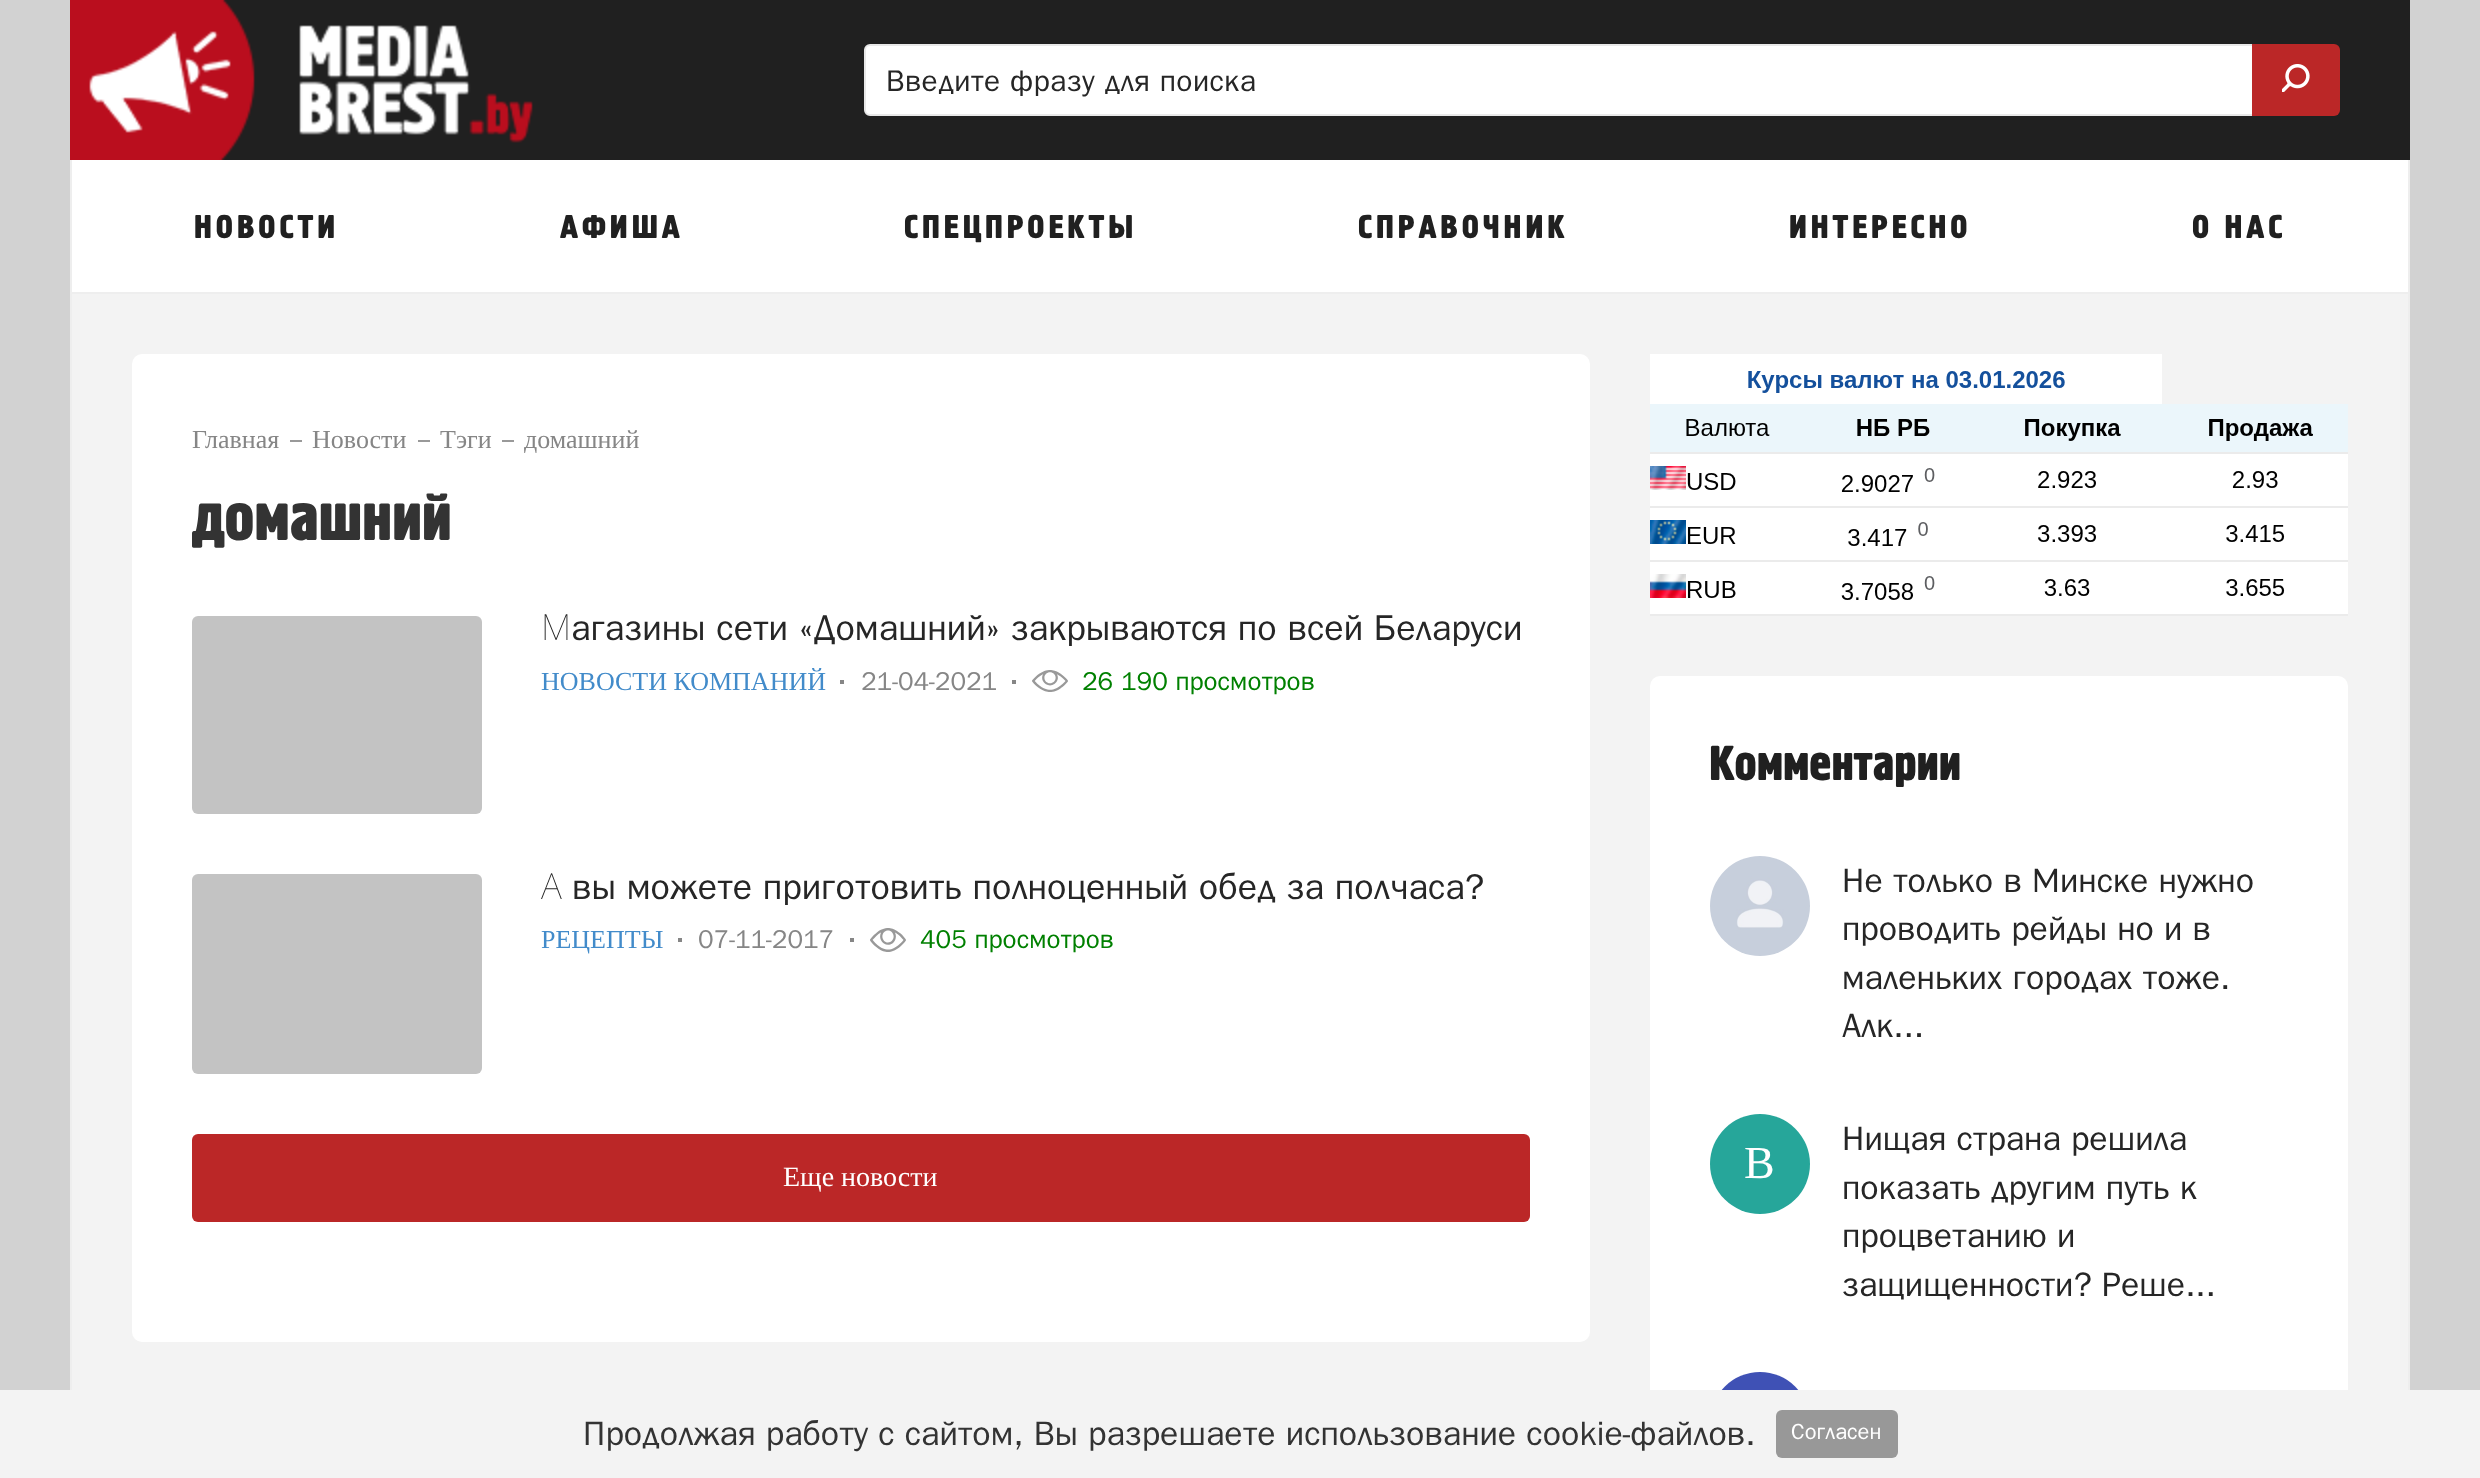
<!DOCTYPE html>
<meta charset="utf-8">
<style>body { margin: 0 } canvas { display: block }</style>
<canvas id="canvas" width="2480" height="1478"></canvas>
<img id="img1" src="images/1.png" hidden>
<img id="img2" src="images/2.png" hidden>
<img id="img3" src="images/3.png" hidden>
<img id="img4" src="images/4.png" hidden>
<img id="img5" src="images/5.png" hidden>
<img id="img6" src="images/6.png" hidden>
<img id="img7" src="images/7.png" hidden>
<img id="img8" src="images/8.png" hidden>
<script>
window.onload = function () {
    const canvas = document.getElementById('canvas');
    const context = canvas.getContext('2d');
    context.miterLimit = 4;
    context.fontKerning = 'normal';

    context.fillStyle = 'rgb(210, 210, 210)';
    context.fillRect(0, 0, 2480, 1478);
    context.fillStyle = 'rgb(32, 32, 32)';
    context.fillRect(533, 0, 1877, 160);
    context.drawImage(document.getElementById('img1'), 70, 0, 463, 160);
    context.fillStyle = 'rgb(255, 255, 255)';
    context.beginPath();
    context.roundRect(865, 45, 1460, 70, 5);
    context.fill();
    context.strokeStyle = 'rgb(232, 232, 232)';
    context.lineWidth = 2;
    context.stroke();
    context.fillStyle = 'rgb(187, 39, 39)';
    context.beginPath();
    context.roundRect(2252, 44, 88, 72, [0, 6, 6, 0]);
    context.fill();
    context.drawImage(document.getElementById('img2'), 2282, 64, 28, 28);
    context.fillStyle = 'rgb(255, 255, 255)';
    context.fillRect(72, 160, 2336, 132);
    context.fillStyle = 'rgb(238, 238, 238)';
    context.fillRect(2408, 160, 2, 1230);
    context.fillRect(70, 292, 2340, 2);
    context.fillRect(70, 160, 2, 1230);
    context.fillStyle = 'rgb(243, 243, 243)';
    context.fillRect(72, 294, 2336, 1096);
    context.fillStyle = 'rgb(255, 255, 255)';
    context.beginPath();
    context.roundRect(132, 354, 1458, 988, 10);
    context.fill();
    context.fillStyle = 'rgb(153, 153, 153)';
    context.fillRect(290, 440, 12, 2);
    context.fillRect(418, 440, 12, 2);
    context.fillRect(502, 440, 12, 2);
    context.drawImage(document.getElementById('img3'), 192, 616, 290, 198);
    context.fillStyle = 'rgb(134, 134, 134)';
    context.fillRect(840, 680, 4, 4);
    context.fillRect(1012, 680, 4, 4);
    context.drawImage(document.getElementById('img4'), 1032, 670, 36, 22);
    context.drawImage(document.getElementById('img5'), 192, 874, 290, 200);
    context.fillRect(678, 938, 4, 4);
    context.fillRect(850, 938, 4, 4);
    context.drawImage(document.getElementById('img6'), 870, 928, 36, 24);
    context.fillStyle = 'rgb(187, 39, 39)';
    context.beginPath();
    context.roundRect(192, 1134, 1338, 88, 6);
    context.fill();
    context.drawImage(document.getElementById('img7'), 1650, 354, 698, 262);
    context.fillStyle = 'rgb(255, 255, 255)';
    context.beginPath();
    context.roundRect(1650, 676, 698, 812, 10);
    context.fill();
    context.drawImage(document.getElementById('img8'), 1710, 856, 100, 100);
    context.fillStyle = 'rgb(38, 166, 154)';
    context.beginPath();
    context.arc(1760, 1164, 50, 0, 2 * Math.PI);
    context.fill();
    context.fillStyle = 'rgb(63, 81, 181)';
    context.beginPath();
    context.arc(1760, 1422, 50, 0, 2 * Math.PI);
    context.fill();
    context.fillStyle = 'rgb(243, 243, 243)';
    context.fillRect(0, 1390, 2480, 88);
    context.fillStyle = 'rgb(152, 152, 152)';
    context.beginPath();
    context.roundRect(1776, 1410, 122, 48, 6);
    context.fill();
    context.letterSpacing = '0.4px';
    context.font = '30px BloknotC';
    context.fillStyle = 'rgb(38, 38, 38)';
    context.fillText('Введите фразу для поиска', 886, 91);
    context.letterSpacing = '4px';
    context.font = '32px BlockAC';
    context.fillStyle = 'rgb(32, 32, 32)';
    context.fillText('НОВОСТИ', 194, 238);
    context.fillText('АФИША', 560, 238);
    context.fillText('СПЕЦПРОЕКТЫ', 904, 238);
    context.fillText('СПРАВОЧНИК', 1358, 238);
    context.fillText('ИНТЕРЕСНО', 1789, 238);
    context.fillText('О НАС', 2192, 238);
    context.letterSpacing = '0px';
    context.font = '26px Liberation Serif';
    context.fillStyle = 'rgb(134, 134, 134)';
    context.fillText('Главная', 192, 448);
    context.fillText('Новости', 312, 448);
    context.fillText('Тэги', 440, 448);
    context.fillText('домашний', 524, 448);
    context.font = '64px BlockAC';
    context.fillStyle = 'rgb(51, 51, 51)';
    context.fillText('домашний', 192, 540);
    context.font = '100 36px Noto Sans';
    context.fillStyle = 'rgb(38, 38, 38)';
    context.fillText('М', 541, 640);
    context.font = '36px BloknotC';
    context.fillText('агазины сети «Домашний» закрываются по всей Беларуси', 571, 640);
    context.font = '26px Liberation Serif';
    context.fillStyle = 'rgb(66, 139, 202)';
    context.fillText('НОВОСТИ КОМПАНИЙ', 541, 690);
    context.font = '26px BloknotC';
    context.fillStyle = 'rgb(134, 134, 134)';
    context.fillText('21-04-2021', 861, 690);
    context.fillStyle = 'rgb(0, 128, 0)';
    context.fillText('26 190 просмотров', 1082, 690);
    context.font = '100 36px Noto Sans';
    context.fillStyle = 'rgb(38, 38, 38)';
    context.fillText('А', 541, 899);
    context.font = '36px BloknotC';
    context.fillText('вы можете приготовить полноценный обед за полчаса?', 572, 899);
    context.font = '26px Liberation Serif';
    context.fillStyle = 'rgb(66, 139, 202)';
    context.fillText('РЕЦЕПТЫ', 541, 948);
    context.font = '26px BloknotC';
    context.fillStyle = 'rgb(134, 134, 134)';
    context.fillText('07-11-2017', 698, 948);
    context.fillStyle = 'rgb(0, 128, 0)';
    context.fillText('405 просмотров', 920, 948);
    context.font = '28px Liberation Serif';
    context.fillStyle = 'rgb(255, 255, 255)';
    context.fillText('Еще новости', 783, 1186);
    context.font = '47.5px BlockAC';
    context.fillStyle = 'rgb(32, 32, 32)';
    context.fillText('Комментарии', 1709, 780);
    context.font = '34px BloknotC';
    context.fillStyle = 'rgb(38, 38, 38)';
    context.fillText('Не только в Минске нужно', 1842, 892);
    context.fillText('проводить рейды но и в', 1842, 940);
    context.fillText('маленьких городах тоже.', 1842, 989);
    context.fillText('Алк...', 1842, 1037);
    context.font = '46px Liberation Serif';
    context.fillStyle = 'rgb(255, 255, 255)';
    context.fillText('В', 1744, 1178);
    context.font = '34px BloknotC';
    context.fillStyle = 'rgb(38, 38, 38)';
    context.fillText('Нищая страна решила', 1842, 1150);
    context.fillText('показать другим путь к', 1842, 1199);
    context.fillText('процветанию и', 1842, 1247);
    context.fillText('защищенности? Реше...', 1842, 1296);
    context.fillStyle = 'rgb(51, 51, 51)';
    context.fillText('Продолжая работу с сайтом, Вы разрешаете использование cookie-файлов.', 583, 1445);
    context.font = '22px BloknotC';
    context.fillStyle = 'rgb(255, 255, 255)';
    context.fillText('Согласен', 1791, 1439);
};
</script>
